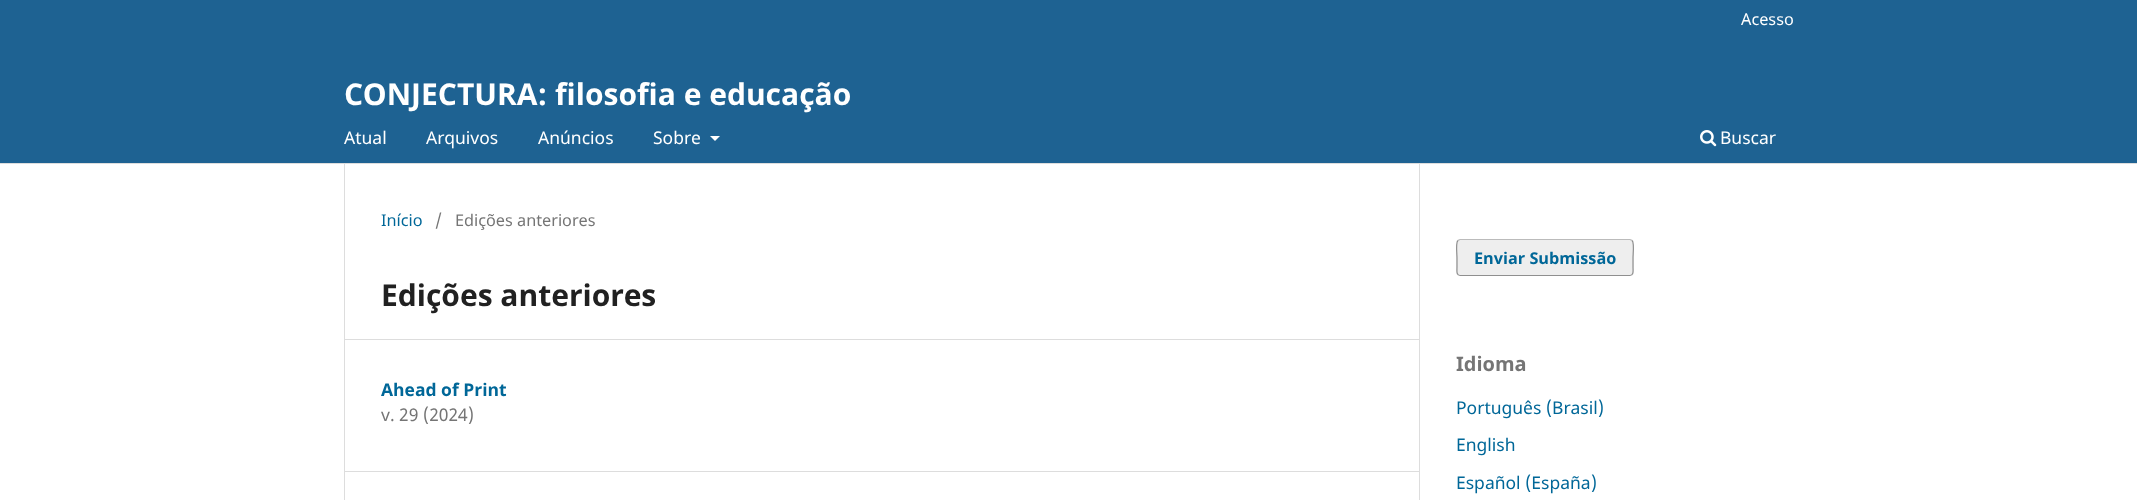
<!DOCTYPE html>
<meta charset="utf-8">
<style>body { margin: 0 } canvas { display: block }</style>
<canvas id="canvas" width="2137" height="500"></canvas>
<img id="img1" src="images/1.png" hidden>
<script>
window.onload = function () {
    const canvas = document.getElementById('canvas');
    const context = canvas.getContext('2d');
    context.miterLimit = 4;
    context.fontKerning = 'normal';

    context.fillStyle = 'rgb(255, 255, 255)';
    context.fillRect(0, 0, 2137, 500);
    context.fillStyle = 'rgb(30, 98, 146)';
    context.fillRect(0, 0, 2137, 163);
    context.fillStyle = 'rgb(221, 221, 221)';
    context.fillRect(0, 163, 2137, 1);
    context.fillStyle = 'rgb(255, 255, 255)';
    context.beginPath();
    context.moveTo(710, 136);
    context.lineTo(720, 136);
    context.lineTo(715, 141);
    context.closePath();
    context.fill();
    context.drawImage(document.getElementById('img1'), 1700, 130, 17, 17);
    context.fillStyle = 'rgb(221, 221, 221)';
    context.fillRect(344, 339, 1075, 1);
    context.fillRect(344, 471, 1075, 1);
    context.fillRect(344, 164, 1, 336);
    context.fillRect(1419, 164, 1, 336);
    context.fillStyle = 'rgb(238, 238, 238)';
    context.beginPath();
    context.roundRect(1456, 239, 178, 37, 4);
    context.fill();
    context.beginPath();
    context.moveTo(1458, 240.5);
    context.lineTo(1460, 239.5);
    context.lineTo(1630, 239.5);
    context.lineTo(1632, 240.5);
    context.strokeStyle = 'rgb(187, 187, 187)';
    context.lineWidth = 1.2;
    context.stroke();
    context.beginPath();
    context.moveTo(1632, 240.5);
    context.bezierCurveTo(1634.5, 242.5, 1633, 254.5, 1633, 257.5);
    context.lineTo(1633, 267.5);
    context.bezierCurveTo(1633, 270, 1634, 275.5, 1630, 275.5);
    context.lineTo(1460, 275.5);
    context.bezierCurveTo(1456, 275.5, 1457, 270, 1457, 267.5);
    context.lineTo(1457, 257.5);
    context.bezierCurveTo(1457, 254.5, 1455.5, 242.5, 1458, 240.5);
    context.strokeStyle = 'rgba(0, 0, 0, 0.4)';
    context.stroke();
    context.font = '16.25px Noto Sans';
    context.fillStyle = 'rgb(255, 255, 255)';
    context.fillText('Acesso', 1741, 25);
    context.font = '17.5px Noto Sans';
    context.fillText('Atual', 344, 144);
    context.fillText('Arquivos', 426, 144);
    context.fillText('Anúncios', 538, 144);
    context.fillText('Sobre', 653, 144);
    context.fillText('Buscar', 1720, 144);
    context.font = 'bold 30px Noto Sans';
    context.fillText('CONJECTURA: filosofia e educação', 344, 105);
    context.font = '16.25px Noto Sans';
    context.fillStyle = 'rgb(0, 103, 152)';
    context.fillText('Início', 381, 226);
    context.fillStyle = 'rgb(117, 117, 117)';
    context.fillText('/', 435, 226);
    context.fillText('Edições anteriores', 455, 226);
    context.font = 'bold 30px Noto Sans';
    context.fillStyle = 'rgb(33, 33, 33)';
    context.fillText('Edições anteriores', 381, 306);
    context.font = 'bold 17.5px Noto Sans';
    context.fillStyle = 'rgb(0, 103, 152)';
    context.fillText('Ahead of Print', 381, 396);
    context.font = '17.5px Noto Sans';
    context.fillStyle = 'rgb(117, 117, 117)';
    context.fillText('v. 29 (2024)', 381, 421);
    context.font = 'bold 16.25px Noto Sans';
    context.fillStyle = 'rgb(0, 103, 152)';
    context.fillText('Enviar Submissão', 1474, 264);
    context.font = 'bold 20px Noto Sans';
    context.fillStyle = 'rgb(117, 117, 117)';
    context.fillText('Idioma', 1456, 371);
    context.font = '17.5px Noto Sans';
    context.fillStyle = 'rgb(0, 103, 152)';
    context.fillText('Português (Brasil)', 1456, 414);
    context.fillText('English', 1456, 451);
    context.fillText('Español (España)', 1456, 489);
};
</script>
